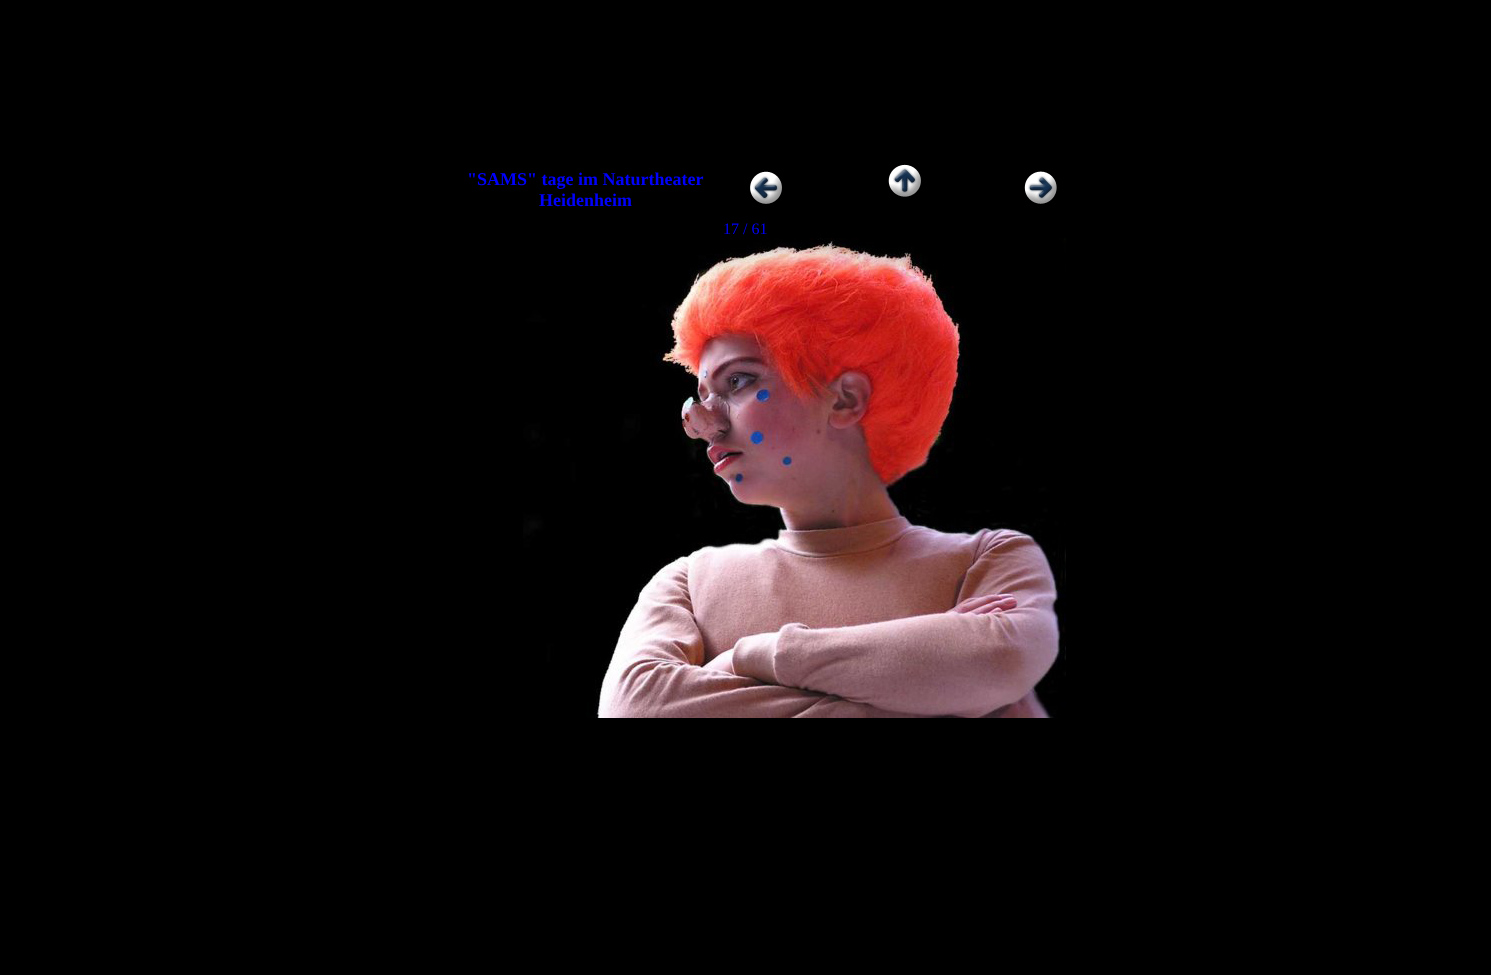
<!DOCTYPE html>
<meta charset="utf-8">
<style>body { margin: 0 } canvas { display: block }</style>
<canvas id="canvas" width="1491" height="975"></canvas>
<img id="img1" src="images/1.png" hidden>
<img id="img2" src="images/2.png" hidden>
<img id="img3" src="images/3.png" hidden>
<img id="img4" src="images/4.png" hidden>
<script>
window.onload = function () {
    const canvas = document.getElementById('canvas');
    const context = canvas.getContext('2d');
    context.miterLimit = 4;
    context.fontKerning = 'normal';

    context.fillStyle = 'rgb(0, 0, 0)';
    context.fillRect(0, 0, 1491, 975);
    context.drawImage(document.getElementById('img1'), 750, 171, 32, 33);
    context.drawImage(document.getElementById('img2'), 888, 164, 33, 33);
    context.drawImage(document.getElementById('img3'), 1024, 171, 33, 33);
    context.drawImage(document.getElementById('img4'), 523, 238, 543, 480);
    context.font = 'bold 18px Liberation Serif';
    context.fillStyle = 'rgb(0, 0, 255)';
    context.fillText('"SAMS" tage im Naturtheater', 467, 185);
    context.fillText('Heidenheim', 539, 206);
    context.font = '16px Liberation Serif';
    context.fillText('17 / 61', 723, 234);
};
</script>
